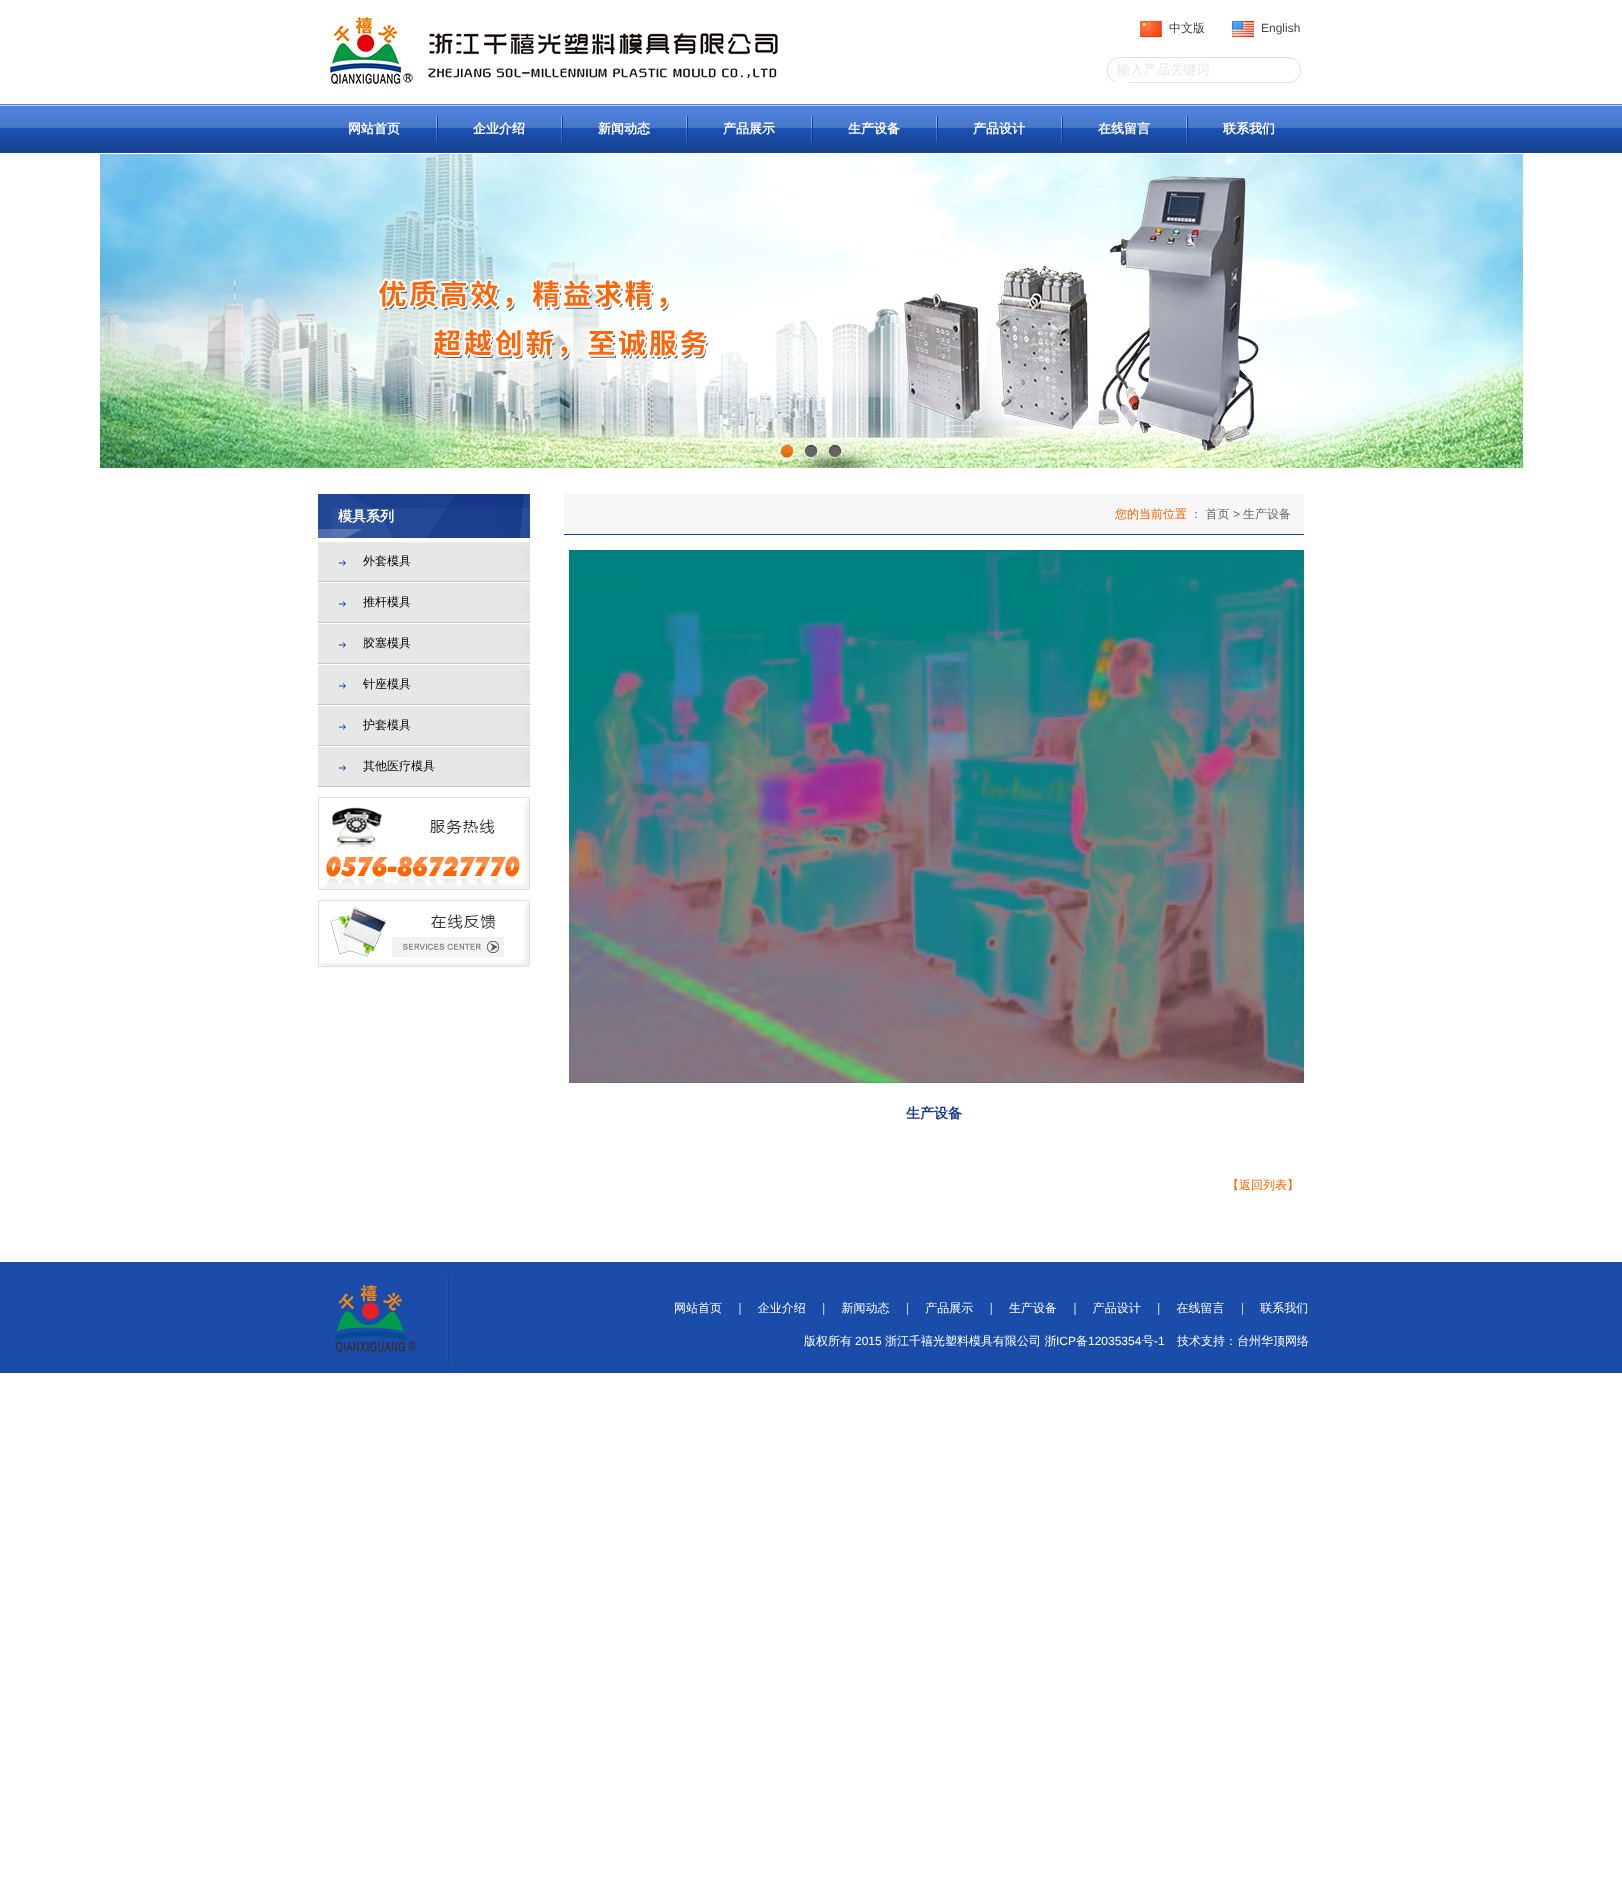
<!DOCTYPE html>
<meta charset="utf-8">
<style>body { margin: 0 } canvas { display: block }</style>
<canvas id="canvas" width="1622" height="1902"></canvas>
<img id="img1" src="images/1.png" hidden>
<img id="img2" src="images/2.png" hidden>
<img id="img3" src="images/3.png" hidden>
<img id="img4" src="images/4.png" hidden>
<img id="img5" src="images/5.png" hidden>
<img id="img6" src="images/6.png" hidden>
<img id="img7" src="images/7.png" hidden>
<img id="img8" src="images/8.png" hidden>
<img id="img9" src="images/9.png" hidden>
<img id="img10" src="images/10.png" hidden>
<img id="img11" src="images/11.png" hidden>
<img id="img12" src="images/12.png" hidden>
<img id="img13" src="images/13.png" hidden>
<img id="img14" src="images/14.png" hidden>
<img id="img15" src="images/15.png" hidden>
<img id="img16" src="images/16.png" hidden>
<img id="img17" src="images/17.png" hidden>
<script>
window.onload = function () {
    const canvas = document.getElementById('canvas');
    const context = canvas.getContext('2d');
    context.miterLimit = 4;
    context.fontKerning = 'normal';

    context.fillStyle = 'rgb(255, 255, 255)';
    context.fillRect(0, 0, 1622, 1902);
    context.drawImage(document.getElementById('img1'), 328, 16, 455, 71);
    context.drawImage(document.getElementById('img2'), 1140, 21, 22, 16);
    context.drawImage(document.getElementById('img3'), 1232, 21, 22, 16);
    context.drawImage(document.getElementById('img4'), 1107, 57, 194, 26);
    context.fillRect(1203, 62, 91, 13);
    context.drawImage(document.getElementById('img5'), 1114, 82, 15, 1);
    context.drawImage(document.getElementById('img6'), 0, 104, 1622, 49);
    context.drawImage(document.getElementById('img7'), 436, 117, 2, 25);
    context.drawImage(document.getElementById('img7'), 561, 117, 2, 25);
    context.drawImage(document.getElementById('img7'), 686, 117, 2, 25);
    context.drawImage(document.getElementById('img7'), 811, 117, 2, 25);
    context.drawImage(document.getElementById('img7'), 936, 117, 2, 25);
    context.drawImage(document.getElementById('img7'), 1061, 117, 2, 25);
    context.drawImage(document.getElementById('img7'), 1186, 117, 2, 25);
    context.drawImage(document.getElementById('img8'), 100, 154, 1423, 314);
    context.drawImage(document.getElementById('img9'), 781, 445, 12, 13);
    context.drawImage(document.getElementById('img10'), 804, 445, 13, 13);
    context.drawImage(document.getElementById('img11'), 828, 445, 13, 13);
    context.drawImage(document.getElementById('img12'), 318, 494, 212, 44);
    context.drawImage(document.getElementById('img13'), 318, 542, 212, 39);
    context.fillStyle = 'rgb(199, 198, 198)';
    context.fillRect(318, 581, 212, 1);
    context.drawImage(document.getElementById('img13'), 318, 583, 212, 39);
    context.fillRect(318, 622, 212, 1);
    context.drawImage(document.getElementById('img13'), 318, 624, 212, 39);
    context.fillRect(318, 663, 212, 1);
    context.drawImage(document.getElementById('img13'), 318, 665, 212, 39);
    context.fillRect(318, 704, 212, 1);
    context.drawImage(document.getElementById('img13'), 318, 706, 212, 39);
    context.fillRect(318, 745, 212, 1);
    context.drawImage(document.getElementById('img13'), 318, 747, 212, 39);
    context.fillRect(318, 786, 212, 1);
    context.drawImage(document.getElementById('img14'), 318, 797, 212, 93);
    context.drawImage(document.getElementById('img15'), 318, 900, 212, 67);
    context.fillStyle = 'rgb(246, 246, 246)';
    context.fillRect(564, 494, 740, 40);
    context.fillStyle = 'rgb(25, 62, 141)';
    context.fillRect(564, 534, 740, 1);
    context.drawImage(document.getElementById('img16'), 569, 550, 735, 533);
    context.fillStyle = 'rgb(26, 77, 169)';
    context.fillRect(0, 1262, 1622, 111);
    context.drawImage(document.getElementById('img17'), 335, 1270, 115, 96);
    context.font = '500 12px WenQuanYi Zen Hei';
    context.fillStyle = 'rgb(68, 68, 68)';
    context.fillText('中文版', 1169, 32);
    context.font = '12px Liberation Sans';
    context.fillText('English', 1261, 32);
    context.font = '500 13.25px WenQuanYi Zen Hei';
    context.fillStyle = 'rgb(231, 231, 231)';
    context.fillText('输入产品关键词', 1117, 74);
    context.font = 'bold 13px WenQuanYi Zen Hei';
    context.fillStyle = 'rgb(255, 255, 255)';
    context.fillText('网站首页', 348, 133);
    context.fillText('企业介绍', 473, 133);
    context.fillText('新闻动态', 598, 133);
    context.fillText('产品展示', 723, 133);
    context.fillText('生产设备', 848, 133);
    context.fillText('产品设计', 973, 133);
    context.fillText('在线留言', 1098, 133);
    context.fillText('联系我们', 1223, 133);
    context.font = 'bold 14px WenQuanYi Zen Hei';
    context.fillText('模具系列', 338, 521);
    context.font = '500 12px WenQuanYi Zen Hei';
    context.fillStyle = 'rgb(0, 0, 0)';
    context.fillText('外套模具', 363, 565);
    context.fillText('推杆模具', 363, 606);
    context.fillText('胶塞模具', 363, 647);
    context.fillText('针座模具', 363, 688);
    context.fillText('护套模具', 363, 729);
    context.fillText('其他医疗模具', 363, 770);
    context.fillStyle = 'rgb(242, 97, 0)';
    context.fillText('您的当前位置', 1115, 518);
    context.fillStyle = 'rgb(102, 102, 102)';
    context.fillText('： 首页', 1190, 518);
    context.font = '12px Liberation Sans';
    context.fillText('>', 1233, 518);
    context.font = '500 12px WenQuanYi Zen Hei';
    context.fillText('生产设备', 1243, 518);
    context.font = 'bold 14px WenQuanYi Zen Hei';
    context.fillStyle = 'rgb(22, 55, 138)';
    context.fillText('生产设备', 906, 1118);
    context.font = '500 12px WenQuanYi Zen Hei';
    context.fillStyle = 'rgb(255, 102, 0)';
    context.fillText('【返回列表】', 1227, 1189);
    context.fillStyle = 'rgb(255, 255, 255)';
    context.fillText('网站首页　｜　企业介绍　｜　新闻动态　｜　产品展示　｜　生产设备　｜　产品设计　｜　在线留言　｜　联系我们', 674, 1312);
    context.fillText('版权所有', 804, 1345);
    context.font = '12px Liberation Sans';
    context.fillText('2015', 855, 1345);
    context.font = '500 12px WenQuanYi Zen Hei';
    context.fillText('浙江千禧光塑料模具有限公司 浙', 885, 1345);
    context.font = '12px Liberation Sans';
    context.fillText('ICP', 1056, 1345);
    context.font = '500 12px WenQuanYi Zen Hei';
    context.fillText('备', 1076, 1345);
    context.font = '12px Liberation Sans';
    context.fillText('12035354', 1088, 1345);
    context.font = '500 12px WenQuanYi Zen Hei';
    context.fillText('号', 1142, 1345);
    context.font = '12px Liberation Sans';
    context.fillText('-1', 1154, 1345);
    context.font = '500 12px WenQuanYi Zen Hei';
    context.fillText('技术支持：台州华顶网络', 1177, 1345);
};
</script>
